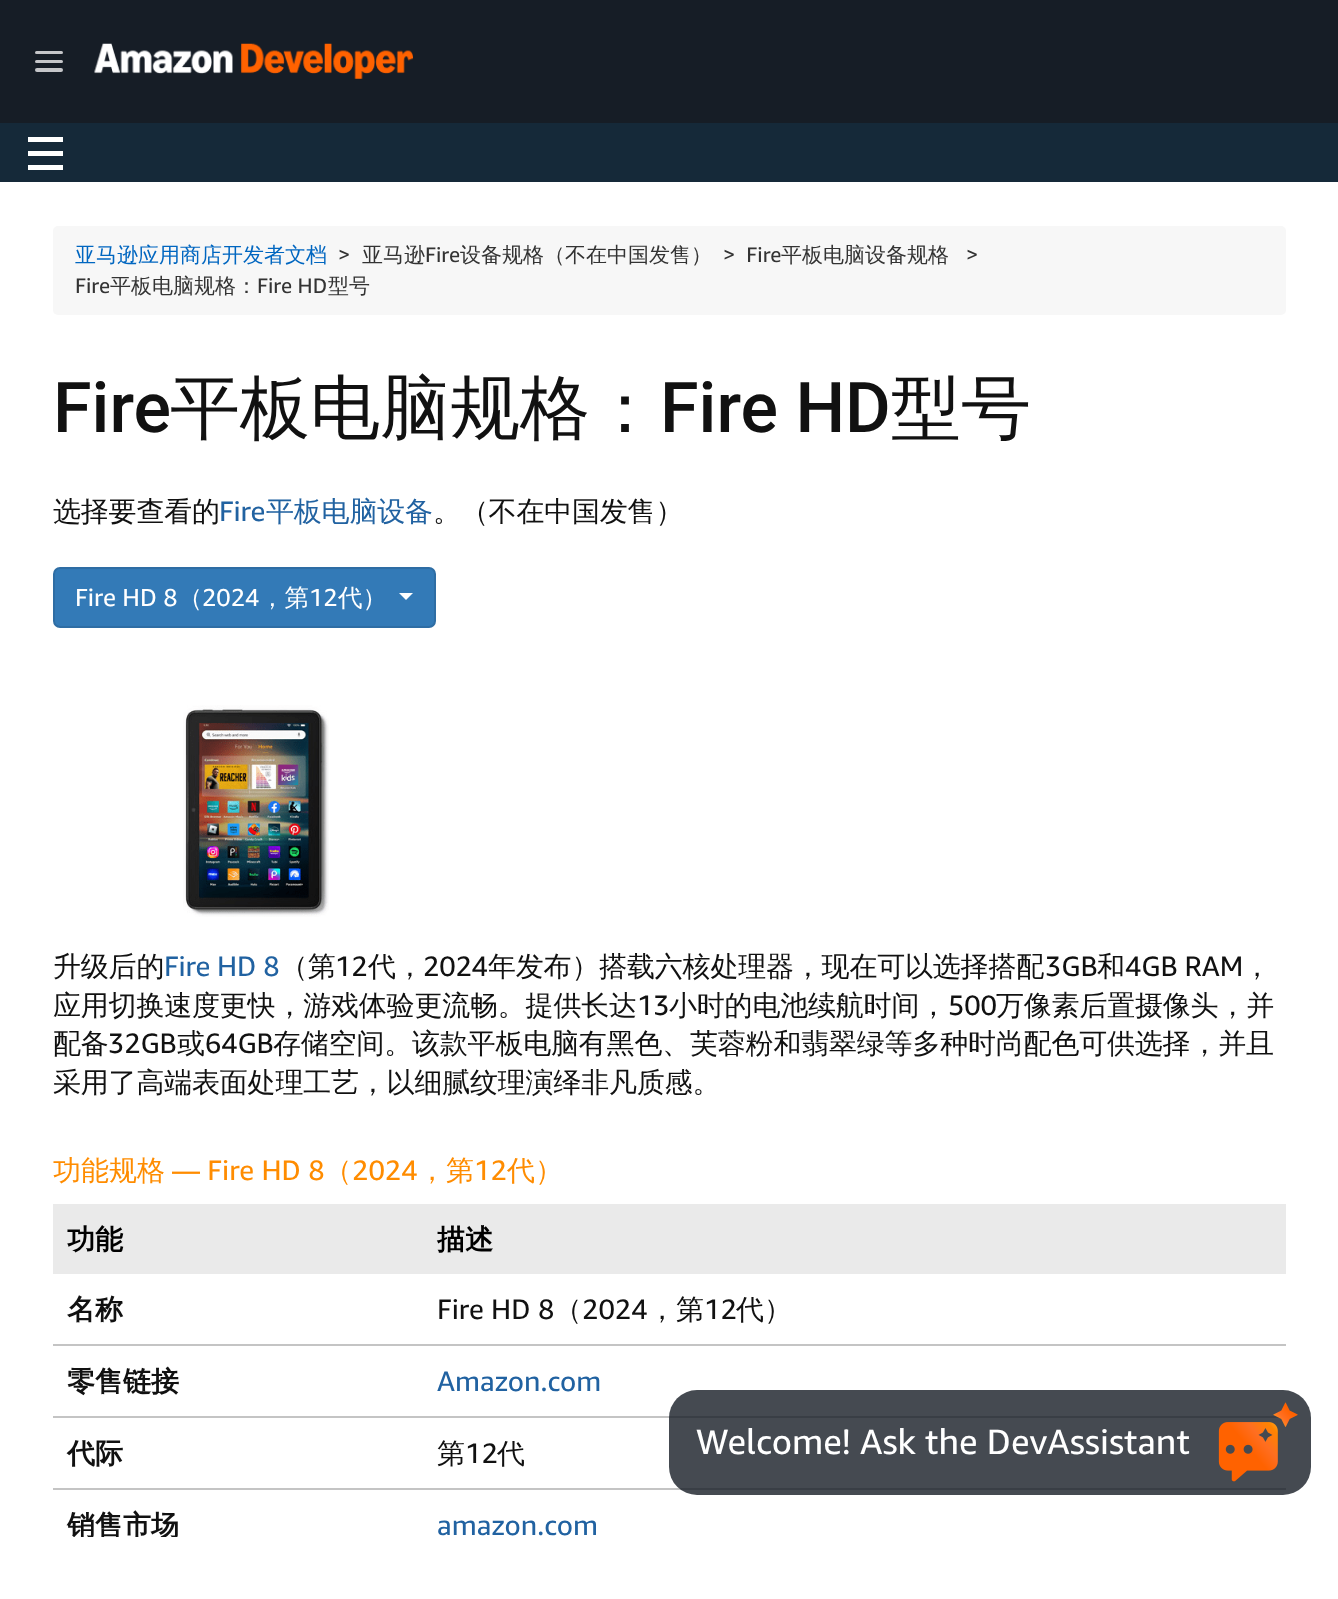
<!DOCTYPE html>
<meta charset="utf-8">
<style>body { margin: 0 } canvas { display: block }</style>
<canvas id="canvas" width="1338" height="1599"></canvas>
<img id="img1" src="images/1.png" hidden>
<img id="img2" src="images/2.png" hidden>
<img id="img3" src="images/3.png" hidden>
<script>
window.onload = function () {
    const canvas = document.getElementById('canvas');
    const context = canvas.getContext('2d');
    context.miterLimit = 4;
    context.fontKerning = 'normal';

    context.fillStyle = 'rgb(21, 41, 57)';
    context.fillRect(0, 0, 1338, 1599);
    context.fillStyle = 'rgb(22, 29, 38)';
    context.fillRect(0, 0, 1338, 123);
    context.fillStyle = 'rgb(197, 198, 201)';
    context.beginPath();
    context.roundRect(35, 51, 28, 3, 1.5);
    context.fill();
    context.beginPath();
    context.roundRect(35, 60, 28, 3, 1.5);
    context.fill();
    context.beginPath();
    context.roundRect(35, 68, 28, 4, 2);
    context.fill();
    context.drawImage(document.getElementById('img1'), 94, 43, 319, 36);
    context.fillStyle = 'rgb(255, 255, 255)';
    context.fillRect(28, 137, 35, 5);
    context.fillRect(28, 151, 35, 5);
    context.fillRect(28, 165, 35, 5);
    context.fillRect(0, 182, 1338, 1417);
    context.fillStyle = 'rgb(247, 247, 247)';
    context.beginPath();
    context.roundRect(53, 226, 1233, 89, 5);
    context.fill();
    context.fillStyle = 'rgb(51, 122, 183)';
    context.beginPath();
    context.roundRect(54, 568, 381, 59, 6);
    context.fill();
    context.strokeStyle = 'rgb(46, 109, 164)';
    context.lineWidth = 2;
    context.stroke();
    context.fillStyle = 'rgb(255, 255, 255)';
    context.beginPath();
    context.moveTo(399, 593);
    context.lineTo(413, 593);
    context.lineTo(406, 600);
    context.closePath();
    context.fill();
    context.drawImage(document.getElementById('img2'), 183, 705, 146, 212);
    context.fillStyle = 'rgb(234, 234, 234)';
    context.fillRect(53, 1204, 1233, 70);
    context.fillStyle = 'rgb(196, 196, 196)';
    context.fillRect(53, 1344, 1233, 2);
    context.fillRect(53, 1416, 1233, 2);
    context.fillRect(53, 1488, 1233, 2);
    context.fillStyle = 'rgba(22, 29, 38, 0.8)';
    context.beginPath();
    context.roundRect(669, 1390, 642, 105, 28);
    context.fill();
    context.drawImage(document.getElementById('img3'), 1218, 1402, 80, 80);
    context.font = '500 21px WenQuanYi Zen Hei';
    context.fillStyle = 'rgb(0, 102, 192)';
    context.fillText('亚马逊应用商店开发者文档', 75, 262);
    context.font = '21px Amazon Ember';
    context.fillStyle = 'rgb(51, 51, 51)';
    context.fillText('>', 338, 262);
    context.font = '500 21px WenQuanYi Zen Hei';
    context.fillText('亚马逊', 362, 262);
    context.font = '21px Amazon Ember';
    context.fillText('Fire', 425, 262);
    context.font = '500 21px WenQuanYi Zen Hei';
    context.fillText('设备规格（不在中国发售）', 460, 262);
    context.font = '21px Amazon Ember';
    context.fillText('>  Fire', 723, 262);
    context.font = '500 21px WenQuanYi Zen Hei';
    context.fillText('平板电脑设备规格', 781, 262);
    context.font = '21px Amazon Ember';
    context.fillText('>', 966, 262);
    context.fillText('Fire', 75, 293);
    context.font = '500 21px WenQuanYi Zen Hei';
    context.fillText('平板电脑规格：', 110, 293);
    context.font = '21px Amazon Ember';
    context.fillText('Fire HD', 257, 293);
    context.font = '500 21px WenQuanYi Zen Hei';
    context.fillText('型号', 328, 293);
    context.font = '500 70px Roboto';
    context.fillStyle = 'rgb(17, 17, 17)';
    context.fillText('Fire', 53, 432);
    context.font = '500 70px WenQuanYi Zen Hei';
    context.fillText('平板电脑规格：', 170, 432);
    context.font = '500 70px Roboto';
    context.fillText('Fire HD', 660, 432);
    context.font = '500 70px WenQuanYi Zen Hei';
    context.fillText('型号', 891, 432);
    context.letterSpacing = '-0.2px';
    context.font = '500 28px WenQuanYi Zen Hei';
    context.fillText('选择要查看的', 53, 521);
    context.font = '28px Amazon Ember';
    context.fillStyle = 'rgb(33, 98, 161)';
    context.fillText('Fire', 219, 521);
    context.font = '500 28px WenQuanYi Zen Hei';
    context.fillText('平板电脑设备', 266, 521);
    context.fillStyle = 'rgb(17, 17, 17)';
    context.fillText('。（不在中国发售）', 433, 521);
    context.letterSpacing = '0px';
    context.font = '24.5px Amazon Ember';
    context.fillStyle = 'rgb(255, 255, 255)';
    context.fillText('Fire HD 8', 75, 606);
    context.font = '500 24.5px WenQuanYi Zen Hei';
    context.fillText('（', 178, 606);
    context.font = '24.5px Amazon Ember';
    context.fillText('2024', 202, 606);
    context.font = '500 24.5px WenQuanYi Zen Hei';
    context.fillText('，第', 260, 606);
    context.font = '24.5px Amazon Ember';
    context.fillText('12', 309, 606);
    context.font = '500 24.5px WenQuanYi Zen Hei';
    context.fillText('代）', 338, 606);
    context.letterSpacing = '-0.2px';
    context.font = '500 28px WenQuanYi Zen Hei';
    context.fillStyle = 'rgb(17, 17, 17)';
    context.fillText('升级后的', 53, 976);
    context.font = '28px Amazon Ember';
    context.fillStyle = 'rgb(33, 98, 161)';
    context.fillText('Fire HD 8', 164, 976);
    context.font = '500 28px WenQuanYi Zen Hei';
    context.fillStyle = 'rgb(17, 17, 17)';
    context.fillText('（第', 280, 976);
    context.font = '28px Amazon Ember';
    context.fillText('12', 335, 976);
    context.font = '500 28px WenQuanYi Zen Hei';
    context.fillText('代，', 368, 976);
    context.font = '28px Amazon Ember';
    context.fillText('2024', 423, 976);
    context.font = '500 28px WenQuanYi Zen Hei';
    context.fillText('年发布）搭载六核处理器，现在可以选择搭配', 488, 976);
    context.font = '28px Amazon Ember';
    context.fillText('3GB', 1045, 976);
    context.font = '500 28px WenQuanYi Zen Hei';
    context.fillText('和', 1097, 976);
    context.font = '28px Amazon Ember';
    context.fillText('4GB RAM', 1125, 976);
    context.font = '500 28px WenQuanYi Zen Hei';
    context.fillText('，', 1243, 976);
    context.fillText('应用切换速度更快，游戏体验更流畅。提供长达', 53, 1015);
    context.font = '28px Amazon Ember';
    context.fillText('13', 637, 1015);
    context.font = '500 28px WenQuanYi Zen Hei';
    context.fillText('小时的电池续航时间，', 669, 1015);
    context.font = '28px Amazon Ember';
    context.fillText('500', 948, 1015);
    context.font = '500 28px WenQuanYi Zen Hei';
    context.fillText('万像素后置摄像头，并', 996, 1015);
    context.fillText('配备', 53, 1053);
    context.font = '28px Amazon Ember';
    context.fillText('32GB', 108, 1053);
    context.font = '500 28px WenQuanYi Zen Hei';
    context.fillText('或', 177, 1053);
    context.font = '28px Amazon Ember';
    context.fillText('64GB', 205, 1053);
    context.font = '500 28px WenQuanYi Zen Hei';
    context.fillText('存储空间。该款平板电脑有黑色、芙蓉粉和翡翠绿等多种时尚配色可供选择，并且', 273, 1053);
    context.fillText('采用了高端表面处理工艺，以细腻纹理演绎非凡质感。', 53, 1092);
    context.letterSpacing = '0px';
    context.fillStyle = 'rgb(255, 140, 0)';
    context.fillText('功能规格', 53, 1180);
    context.font = '28px Amazon Ember';
    context.fillText('— Fire HD 8', 172, 1180);
    context.font = '500 28px WenQuanYi Zen Hei';
    context.fillText('（', 324, 1180);
    context.font = '28px Amazon Ember';
    context.fillText('2024', 352, 1180);
    context.font = '500 28px WenQuanYi Zen Hei';
    context.fillText('，第', 418, 1180);
    context.font = '28px Amazon Ember';
    context.fillText('12', 474, 1180);
    context.font = '500 28px WenQuanYi Zen Hei';
    context.fillText('代）', 507, 1180);
    context.font = 'bold 28px WenQuanYi Zen Hei';
    context.fillStyle = 'rgb(0, 0, 0)';
    context.fillText('功能', 67, 1249);
    context.fillText('描述', 437, 1249);
    context.fillStyle = 'rgb(17, 17, 17)';
    context.fillText('名称', 67, 1319);
    context.font = '28px Amazon Ember';
    context.fillText('Fire HD 8', 437, 1319);
    context.font = '500 28px WenQuanYi Zen Hei';
    context.fillText('（', 554, 1319);
    context.font = '28px Amazon Ember';
    context.fillText('2024', 582, 1319);
    context.font = '500 28px WenQuanYi Zen Hei';
    context.fillText('，第', 648, 1319);
    context.font = '28px Amazon Ember';
    context.fillText('12', 704, 1319);
    context.font = '500 28px WenQuanYi Zen Hei';
    context.fillText('代）', 736, 1319);
    context.font = 'bold 28px WenQuanYi Zen Hei';
    context.fillText('零售链接', 67, 1391);
    context.font = '28px Amazon Ember';
    context.fillStyle = 'rgb(33, 98, 161)';
    context.fillText('Amazon.com', 437, 1391);
    context.font = 'bold 28px WenQuanYi Zen Hei';
    context.fillStyle = 'rgb(17, 17, 17)';
    context.fillText('代际', 67, 1463);
    context.font = '500 28px WenQuanYi Zen Hei';
    context.fillText('第', 437, 1463);
    context.font = '28px Amazon Ember';
    context.fillText('12', 465, 1463);
    context.font = '500 28px WenQuanYi Zen Hei';
    context.fillText('代', 497, 1463);
    context.save();
    context.beginPath();
    context.rect(53, 1136, 1233, 401);
    context.clip();
    context.font = 'bold 28px WenQuanYi Zen Hei';
    context.fillText('销售市场', 67, 1535);
    context.restore();
    context.font = '28px Amazon Ember';
    context.fillStyle = 'rgb(33, 98, 161)';
    context.fillText('amazon.com', 437, 1535);
    context.font = '35px "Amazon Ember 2"';
    context.fillStyle = 'rgb(255, 255, 255)';
    context.fillText('Welcome! Ask the DevAssistant', 696, 1454);
};
</script>
